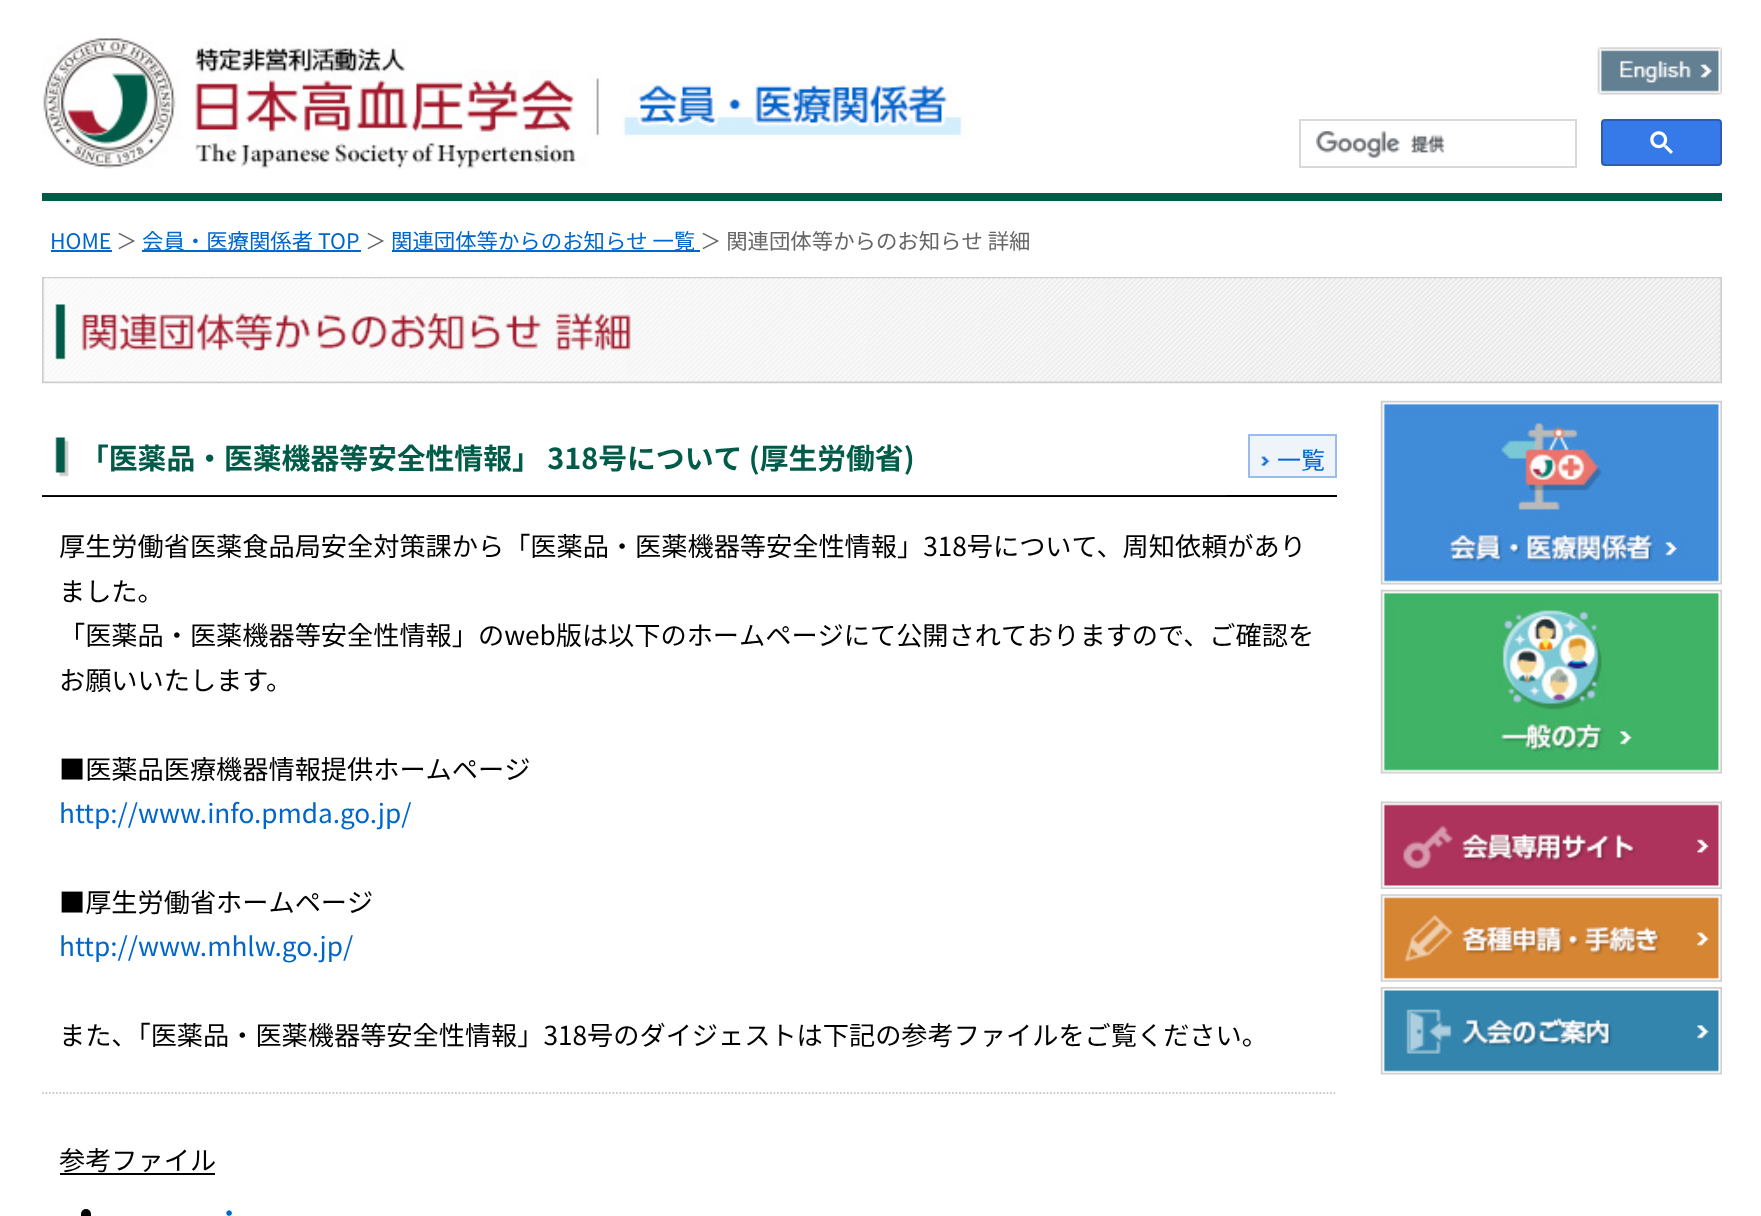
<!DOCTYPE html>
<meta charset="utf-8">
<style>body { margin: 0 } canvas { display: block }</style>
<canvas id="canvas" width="1761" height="1216"></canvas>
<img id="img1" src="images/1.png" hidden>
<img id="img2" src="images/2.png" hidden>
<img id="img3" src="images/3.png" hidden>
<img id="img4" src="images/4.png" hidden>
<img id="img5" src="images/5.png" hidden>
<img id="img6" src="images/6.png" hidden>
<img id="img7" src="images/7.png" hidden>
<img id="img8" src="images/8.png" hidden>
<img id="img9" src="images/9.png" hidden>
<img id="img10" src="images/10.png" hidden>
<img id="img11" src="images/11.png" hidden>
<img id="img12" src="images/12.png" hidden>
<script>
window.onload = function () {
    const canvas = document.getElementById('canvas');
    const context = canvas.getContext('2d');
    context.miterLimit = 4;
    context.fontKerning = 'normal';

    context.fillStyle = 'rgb(255, 255, 255)';
    context.fillRect(0, 0, 1761, 1216);
    context.fillStyle = 'rgb(0, 92, 73)';
    context.fillRect(42, 193, 1680, 8);
    context.drawImage(document.getElementById('img1'), 42, 37, 924, 132);
    context.drawImage(document.getElementById('img2'), 1597, 47, 125, 48);
    context.strokeStyle = 'rgb(217, 217, 217)';
    context.lineWidth = 2;
    context.strokeRect(1300, 120, 276, 47);
    context.drawImage(document.getElementById('img3'), 1316, 131, 129, 27);
    context.fillStyle = 'rgb(53, 122, 232)';
    context.beginPath();
    context.roundRect(1602, 120, 119, 45, 3);
    context.fill();
    context.strokeStyle = 'rgb(47, 91, 183)';
    context.stroke();
    context.drawImage(document.getElementById('img4'), 1650, 131, 23, 23);
    context.fillStyle = 'rgb(206, 206, 206)';
    context.fillRect(42, 277, 1680, 2);
    context.fillStyle = 'rgb(0, 102, 204)';
    context.fillRect(51, 250, 61, 2);
    context.fillRect(142, 250, 219, 2);
    context.fillRect(392, 250, 308, 2);
    context.drawImage(document.getElementById('img5'), 42, 278, 1680, 106);
    context.fillStyle = 'rgb(0, 0, 0)';
    context.fillRect(42, 495, 1295, 2);
    context.drawImage(document.getElementById('img6'), 42, 437, 1185, 59);
    context.fillStyle = 'rgb(239, 244, 251)';
    context.beginPath();
    context.rect(1249, 435, 87, 42);
    context.fill();
    context.strokeStyle = 'rgb(153, 187, 238)';
    context.stroke();
    context.drawImage(document.getElementById('img7'), 1261, 456, 9, 10);
    context.beginPath();
    context.moveTo(42, 1093);
    context.lineTo(1337, 1093);
    context.strokeStyle = 'rgb(206, 206, 206)';
    context.lineWidth = 1.8;
    context.setLineDash([1.75, 1.75]);
    context.stroke();
    context.fillStyle = 'rgb(0, 0, 0)';
    context.fillRect(60, 1173, 155, 2);
    context.beginPath();
    context.roundRect(81, 1209, 10, 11, 5);
    context.fill();
    context.drawImage(document.getElementById('img8'), 1380, 400, 342, 185);
    context.drawImage(document.getElementById('img9'), 1380, 589, 342, 185);
    context.drawImage(document.getElementById('img10'), 1380, 801, 342, 88);
    context.drawImage(document.getElementById('img11'), 1380, 894, 342, 88);
    context.drawImage(document.getElementById('img12'), 1380, 987, 342, 88);
    context.font = '21.4px Noto Sans JP';
    context.fillStyle = 'rgb(0, 102, 204)';
    context.fillText('HOME', 50, 249);
    context.fillStyle = 'rgb(102, 102, 102)';
    context.fillText('＞', 116, 249);
    context.fillStyle = 'rgb(0, 102, 204)';
    context.fillText('会員・医療関係者 TOP', 142, 249);
    context.fillStyle = 'rgb(102, 102, 102)';
    context.fillText('＞', 365, 249);
    context.fillStyle = 'rgb(0, 102, 204)';
    context.fillText('関連団体等からのお知らせ 一覧', 391, 249);
    context.fillStyle = 'rgb(102, 102, 102)';
    context.fillText('＞ 関連団体等からのお知らせ 詳細', 700, 249);
    context.font = 'bold 28.8px Noto Sans JP';
    context.fillStyle = 'rgb(0, 92, 73)';
    context.fillText('「医薬品・医薬機器等安全性情報」 318号について (厚生労働省)', 80, 469);
    context.font = '24px Noto Sans JP';
    context.fillStyle = 'rgb(0, 102, 204)';
    context.fillText('一覧', 1277, 469);
    context.font = '26.2px Noto Sans JP';
    context.fillStyle = 'rgb(0, 0, 0)';
    context.fillText('厚生労働省医薬食品局安全対策課から「医薬品・医薬機器等安全性情報」318号について、周知依頼があり', 59, 556);
    context.fillText('ました。', 59, 601);
    context.fillText('「医薬品・医薬機器等安全性情報」のweb版は以下のホームページにて公開されておりますので、ご確認を', 59, 645);
    context.fillText('お願いいたします。', 59, 690);
    context.fillText('■医薬品医療機器情報提供ホームページ', 59, 779);
    context.fillStyle = 'rgb(0, 102, 204)';
    context.fillText('http://www.info.pmda.go.jp/', 59, 823);
    context.fillStyle = 'rgb(0, 0, 0)';
    context.fillText('■厚生労働省ホームページ', 59, 912);
    context.fillStyle = 'rgb(0, 102, 204)';
    context.fillText('http://www.mhlw.go.jp/', 59, 956);
    context.fillStyle = 'rgb(0, 0, 0)';
    context.fillText('また、「医薬品・医薬機器等安全性情報」318号のダイジェストは下記の参考ファイルをご覧ください。', 59, 1045);
    context.fillText('参考ファイル', 59, 1170);
    context.fillStyle = 'rgb(0, 102, 204)';
    context.fillText('・', 216, 1223);
};
</script>
